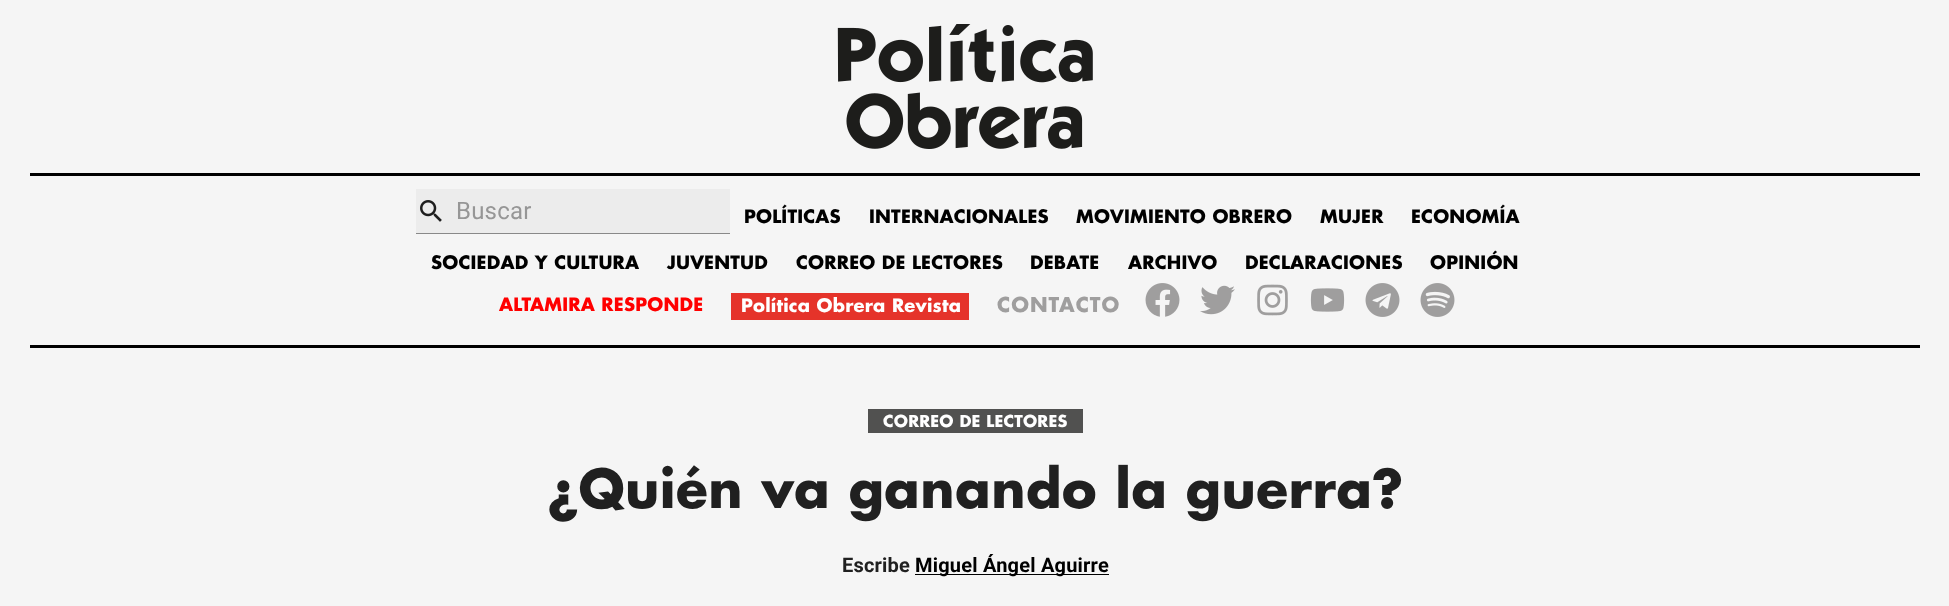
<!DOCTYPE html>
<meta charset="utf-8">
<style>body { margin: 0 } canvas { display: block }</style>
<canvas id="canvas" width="1949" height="606"></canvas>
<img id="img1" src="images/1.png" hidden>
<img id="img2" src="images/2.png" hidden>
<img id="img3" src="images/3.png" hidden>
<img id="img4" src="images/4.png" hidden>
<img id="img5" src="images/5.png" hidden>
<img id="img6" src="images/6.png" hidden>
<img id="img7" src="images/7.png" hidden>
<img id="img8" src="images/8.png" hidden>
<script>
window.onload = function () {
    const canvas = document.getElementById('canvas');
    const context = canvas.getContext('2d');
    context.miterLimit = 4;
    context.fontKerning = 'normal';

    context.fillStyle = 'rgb(245, 245, 245)';
    context.fillRect(0, 0, 1949, 606);
    context.drawImage(document.getElementById('img1'), 837, 24, 256, 125);
    context.fillStyle = 'rgb(0, 0, 0)';
    context.fillRect(30, 173, 1890, 3);
    context.fillRect(30, 345, 1890, 3);
    context.fillStyle = 'rgb(236, 236, 236)';
    context.fillRect(416, 189, 314, 44);
    context.drawImage(document.getElementById('img2'), 420, 200, 22, 22);
    context.fillStyle = 'rgb(137, 137, 137)';
    context.fillRect(416, 233, 314, 1);
    context.fillStyle = 'rgb(229, 51, 42)';
    context.fillRect(731, 293, 238, 27);
    context.drawImage(document.getElementById('img3'), 1145, 283, 35, 34);
    context.drawImage(document.getElementById('img4'), 1200, 285, 35, 30);
    context.drawImage(document.getElementById('img5'), 1257, 284, 31, 32);
    context.drawImage(document.getElementById('img6'), 1310, 288, 35, 24);
    context.drawImage(document.getElementById('img7'), 1365, 283, 35, 34);
    context.drawImage(document.getElementById('img8'), 1420, 283, 35, 34);
    context.fillStyle = 'rgb(81, 81, 80)';
    context.fillRect(868, 409, 215, 24);
    context.fillStyle = 'rgb(0, 0, 0)';
    context.fillRect(915, 574, 194, 1);
    context.letterSpacing = '0.2px';
    context.font = '24px Roboto';
    context.fillStyle = 'rgb(150, 150, 150)';
    context.fillText('Buscar', 456, 219);
    context.font = 'bold 18px Futura';
    context.fillStyle = 'rgb(0, 0, 0)';
    context.fillText('POLÍTICAS', 744, 223);
    context.fillText('INTERNACIONALES', 869, 223);
    context.fillText('MOVIMIENTO OBRERO', 1076, 223);
    context.fillText('MUJER', 1320, 223);
    context.fillText('ECONOMÍA', 1411, 223);
    context.fillText('SOCIEDAD Y CULTURA', 431, 269);
    context.fillText('JUVENTUD', 667, 269);
    context.fillText('CORREO DE LECTORES', 796, 269);
    context.fillText('DEBATE', 1030, 269);
    context.fillText('ARCHIVO', 1128, 269);
    context.fillText('DECLARACIONES', 1245, 269);
    context.fillText('OPINIÓN', 1430, 269);
    context.fillStyle = 'rgb(255, 0, 0)';
    context.fillText('ALTAMIRA RESPONDE', 499, 311);
    context.fillStyle = 'rgb(255, 255, 255)';
    context.fillText('Política Obrera Revista', 741, 312);
    context.letterSpacing = '1px';
    context.font = 'bold 20px Futura';
    context.fillStyle = 'rgb(159, 158, 158)';
    context.fillText('CONTACTO', 997, 312);
    context.letterSpacing = '0.2px';
    context.font = 'bold 16px Futura';
    context.fillStyle = 'rgb(255, 255, 255)';
    context.fillText('CORREO DE LECTORES', 883, 427);
    context.letterSpacing = '0.5px';
    context.font = 'bold 52px Futura';
    context.fillStyle = 'rgb(32, 32, 32)';
    context.fillText('¿Quién va ganando la guerra?', 547, 508);
    context.letterSpacing = '0.2px';
    context.font = 'bold 20px Roboto';
    context.fillText('Escribe', 842, 572);
    context.fillStyle = 'rgb(0, 0, 0)';
    context.fillText('Miguel Ángel Aguirre', 915, 572);
};
</script>
